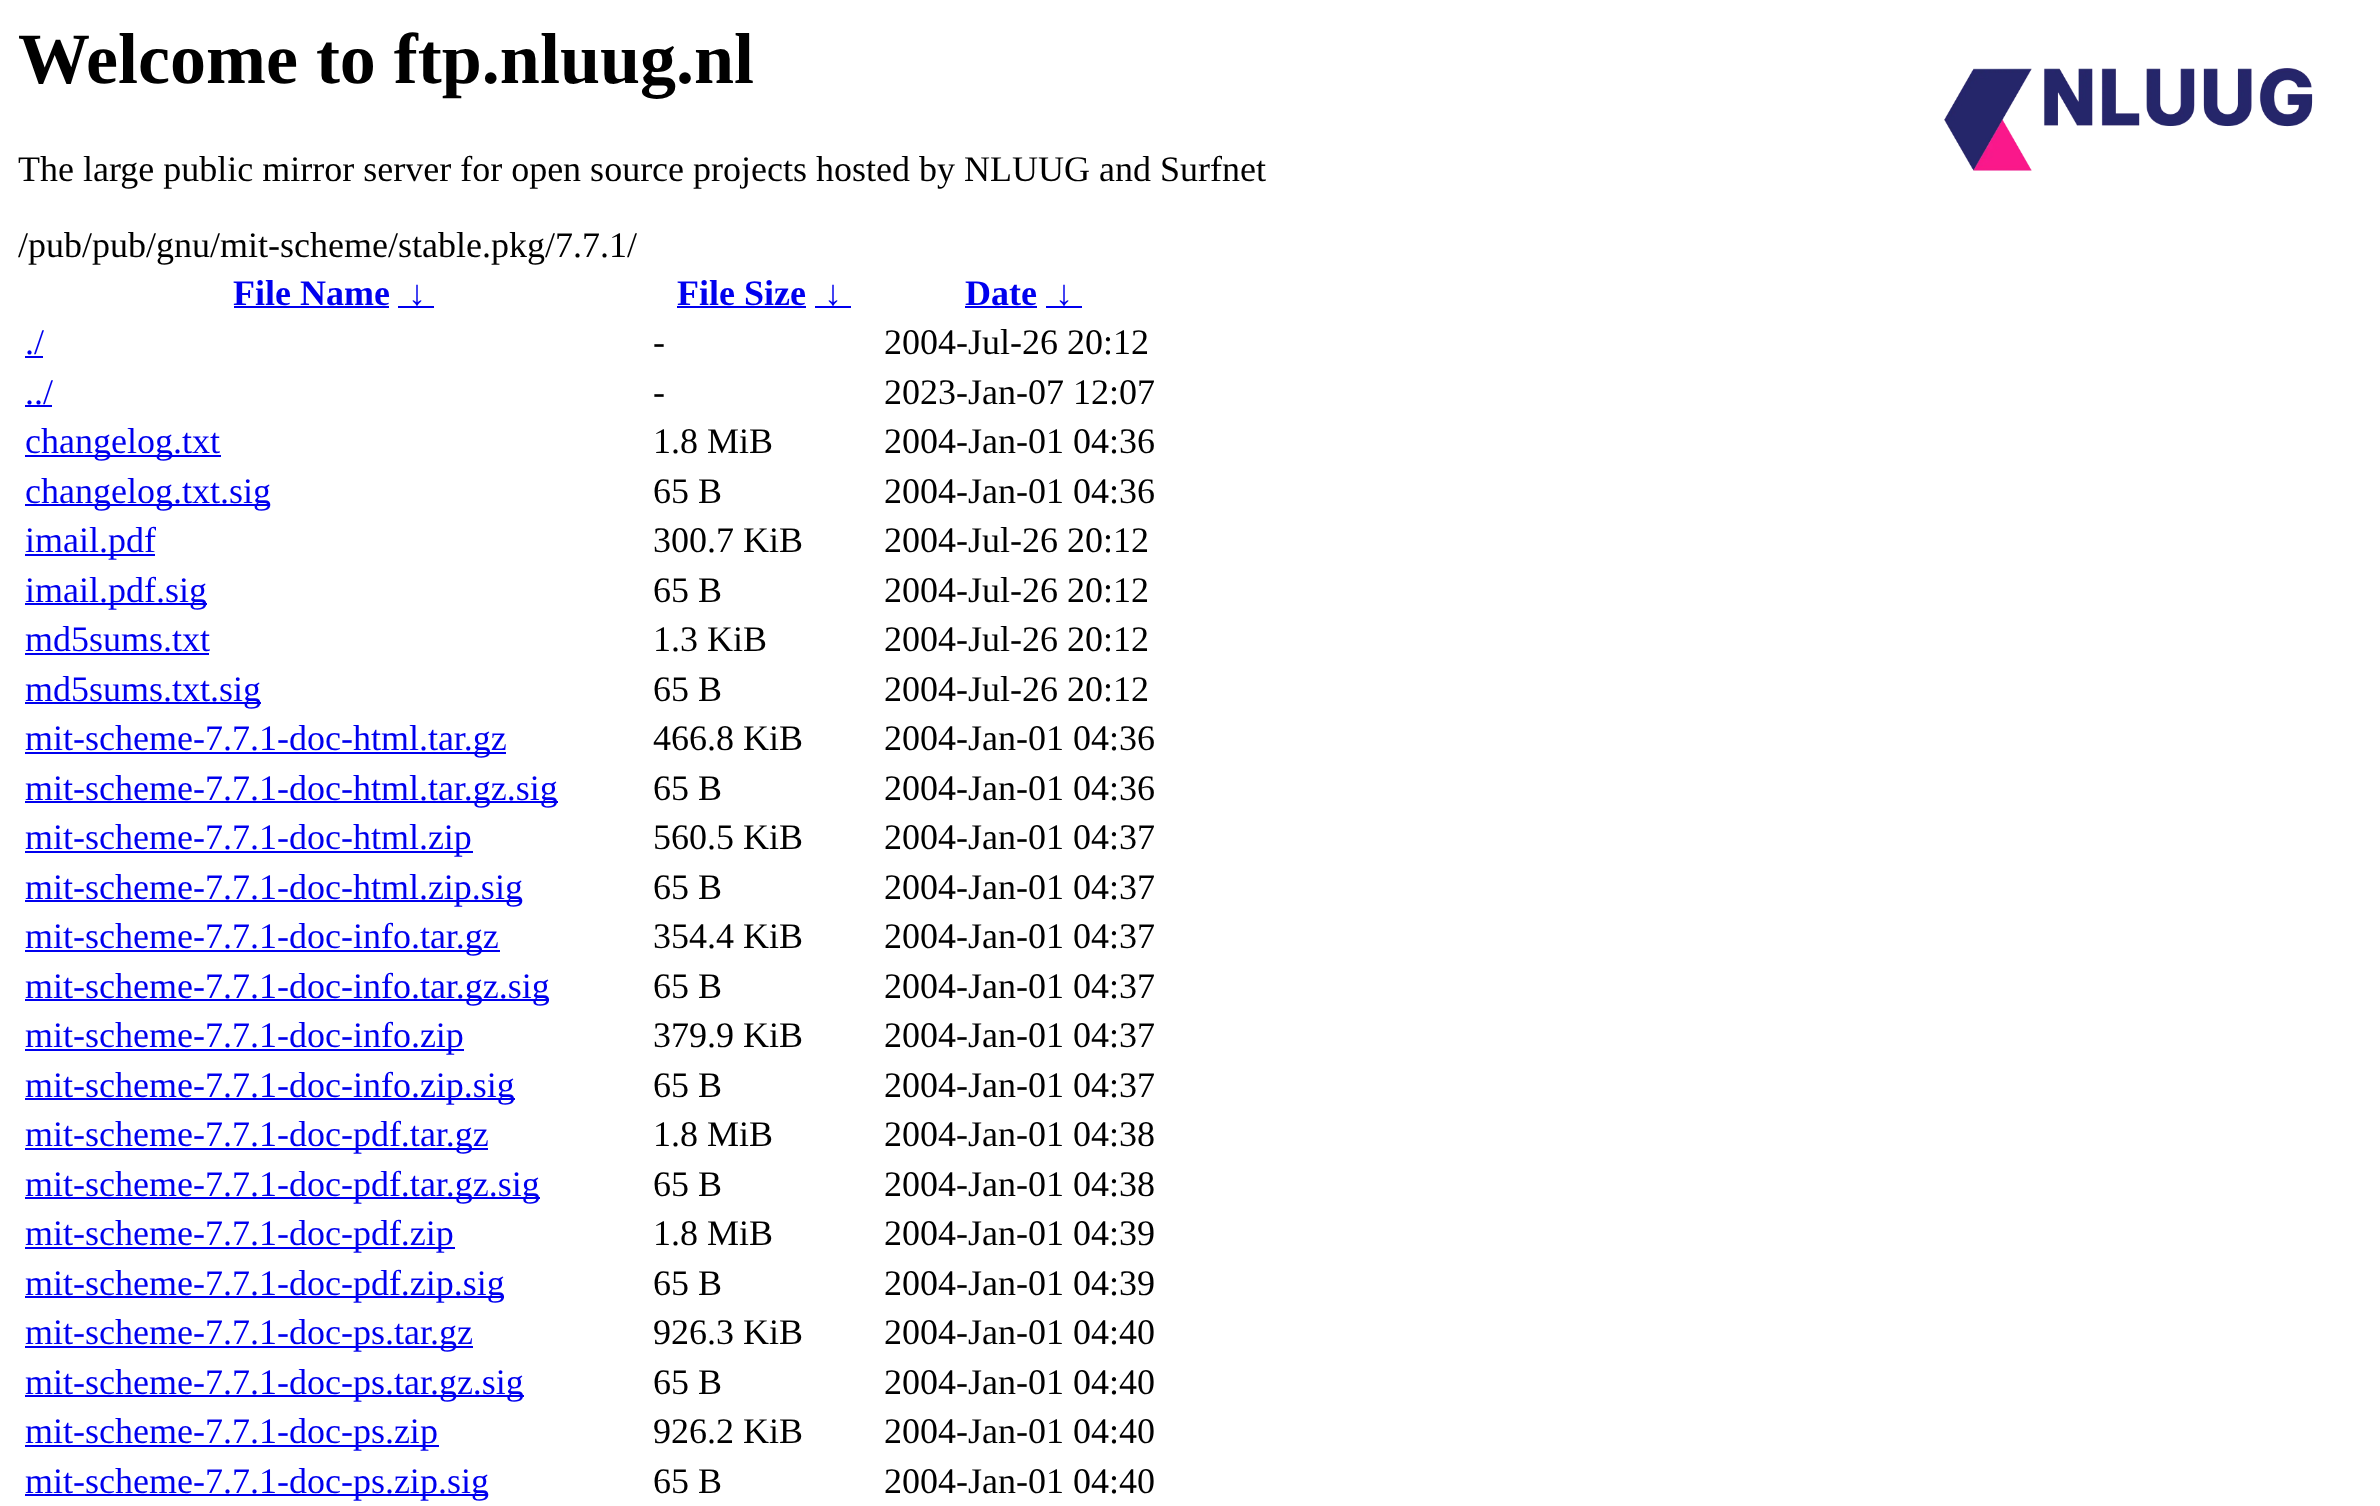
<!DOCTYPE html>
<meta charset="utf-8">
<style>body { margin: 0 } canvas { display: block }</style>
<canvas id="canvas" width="2380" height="1506"></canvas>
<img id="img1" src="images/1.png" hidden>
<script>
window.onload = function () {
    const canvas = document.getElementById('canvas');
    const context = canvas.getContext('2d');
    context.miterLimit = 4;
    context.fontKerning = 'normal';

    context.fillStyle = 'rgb(255, 255, 255)';
    context.fillRect(0, 0, 2380, 1506);
    context.drawImage(document.getElementById('img1'), 1944, 68, 369, 103);
    context.fillStyle = 'rgb(0, 0, 238)';
    context.fillRect(234, 306, 155, 2);
    context.fillRect(398, 306, 36, 2);
    context.fillRect(677, 306, 129, 2);
    context.fillRect(815, 306, 36, 2);
    context.fillRect(965, 306, 72, 2);
    context.fillRect(1046, 306, 36, 2);
    context.fillRect(25, 356, 18, 2);
    context.fillRect(25, 405, 27, 2);
    context.fillRect(25, 455, 196, 2);
    context.fillRect(25, 504, 245, 2);
    context.fillRect(25, 554, 130, 2);
    context.fillRect(25, 603, 182, 2);
    context.fillRect(25, 653, 184, 2);
    context.fillRect(25, 702, 236, 2);
    context.fillRect(25, 752, 481, 2);
    context.fillRect(25, 801, 533, 2);
    context.fillRect(25, 851, 448, 2);
    context.fillRect(25, 900, 497, 2);
    context.fillRect(25, 950, 475, 2);
    context.fillRect(25, 999, 524, 2);
    context.fillRect(25, 1049, 439, 2);
    context.fillRect(25, 1098, 490, 2);
    context.fillRect(25, 1148, 463, 2);
    context.fillRect(25, 1197, 515, 2);
    context.fillRect(25, 1247, 430, 2);
    context.fillRect(25, 1296, 479, 2);
    context.fillRect(25, 1346, 448, 2);
    context.fillRect(25, 1395, 499, 2);
    context.fillRect(25, 1445, 414, 2);
    context.fillRect(25, 1494, 463, 2);
    context.font = 'bold 72px Liberation Serif';
    context.fillStyle = 'rgb(0, 0, 0)';
    context.fillText('Welcome to ftp.nluug.nl', 18, 83);
    context.font = '36px Liberation Serif';
    context.fillText('The large public mirror server for open source projects hosted by NLUUG and Surfnet', 18, 181);
    context.fillText('/pub/pub/gnu/mit-scheme/stable.pkg/7.7.1/', 18, 257);
    context.font = 'bold 36px Liberation Serif';
    context.fillStyle = 'rgb(0, 0, 238)';
    context.fillText('File Name', 233, 305);
    context.fillText('↓', 408, 305);
    context.fillText('File Size', 677, 305);
    context.fillText('↓', 824, 305);
    context.fillText('Date', 965, 305);
    context.fillText('↓', 1055, 305);
    context.font = '36px Liberation Serif';
    context.fillText('./', 25, 354);
    context.fillStyle = 'rgb(0, 0, 0)';
    context.fillText('-', 653, 354);
    context.fillText('2004-Jul-26 20:12', 884, 354);
    context.fillStyle = 'rgb(0, 0, 238)';
    context.fillText('../', 25, 404);
    context.fillStyle = 'rgb(0, 0, 0)';
    context.fillText('-', 653, 404);
    context.fillText('2023-Jan-07 12:07', 884, 404);
    context.fillStyle = 'rgb(0, 0, 238)';
    context.fillText('changelog.txt', 25, 453);
    context.fillStyle = 'rgb(0, 0, 0)';
    context.fillText('1.8 MiB', 653, 453);
    context.fillText('2004-Jan-01 04:36', 884, 453);
    context.fillStyle = 'rgb(0, 0, 238)';
    context.fillText('changelog.txt.sig', 25, 503);
    context.fillStyle = 'rgb(0, 0, 0)';
    context.fillText('65 B', 653, 503);
    context.fillText('2004-Jan-01 04:36', 884, 503);
    context.fillStyle = 'rgb(0, 0, 238)';
    context.fillText('imail.pdf', 25, 552);
    context.fillStyle = 'rgb(0, 0, 0)';
    context.fillText('300.7 KiB', 653, 552);
    context.fillText('2004-Jul-26 20:12', 884, 552);
    context.fillStyle = 'rgb(0, 0, 238)';
    context.fillText('imail.pdf.sig', 25, 602);
    context.fillStyle = 'rgb(0, 0, 0)';
    context.fillText('65 B', 653, 602);
    context.fillText('2004-Jul-26 20:12', 884, 602);
    context.fillStyle = 'rgb(0, 0, 238)';
    context.fillText('md5sums.txt', 25, 651);
    context.fillStyle = 'rgb(0, 0, 0)';
    context.fillText('1.3 KiB', 653, 651);
    context.fillText('2004-Jul-26 20:12', 884, 651);
    context.fillStyle = 'rgb(0, 0, 238)';
    context.fillText('md5sums.txt.sig', 25, 701);
    context.fillStyle = 'rgb(0, 0, 0)';
    context.fillText('65 B', 653, 701);
    context.fillText('2004-Jul-26 20:12', 884, 701);
    context.fillStyle = 'rgb(0, 0, 238)';
    context.fillText('mit-scheme-7.7.1-doc-html.tar.gz', 25, 750);
    context.fillStyle = 'rgb(0, 0, 0)';
    context.fillText('466.8 KiB', 653, 750);
    context.fillText('2004-Jan-01 04:36', 884, 750);
    context.fillStyle = 'rgb(0, 0, 238)';
    context.fillText('mit-scheme-7.7.1-doc-html.tar.gz.sig', 25, 800);
    context.fillStyle = 'rgb(0, 0, 0)';
    context.fillText('65 B', 653, 800);
    context.fillText('2004-Jan-01 04:36', 884, 800);
    context.fillStyle = 'rgb(0, 0, 238)';
    context.fillText('mit-scheme-7.7.1-doc-html.zip', 25, 849);
    context.fillStyle = 'rgb(0, 0, 0)';
    context.fillText('560.5 KiB', 653, 849);
    context.fillText('2004-Jan-01 04:37', 884, 849);
    context.fillStyle = 'rgb(0, 0, 238)';
    context.fillText('mit-scheme-7.7.1-doc-html.zip.sig', 25, 899);
    context.fillStyle = 'rgb(0, 0, 0)';
    context.fillText('65 B', 653, 899);
    context.fillText('2004-Jan-01 04:37', 884, 899);
    context.fillStyle = 'rgb(0, 0, 238)';
    context.fillText('mit-scheme-7.7.1-doc-info.tar.gz', 25, 948);
    context.fillStyle = 'rgb(0, 0, 0)';
    context.fillText('354.4 KiB', 653, 948);
    context.fillText('2004-Jan-01 04:37', 884, 948);
    context.fillStyle = 'rgb(0, 0, 238)';
    context.fillText('mit-scheme-7.7.1-doc-info.tar.gz.sig', 25, 998);
    context.fillStyle = 'rgb(0, 0, 0)';
    context.fillText('65 B', 653, 998);
    context.fillText('2004-Jan-01 04:37', 884, 998);
    context.fillStyle = 'rgb(0, 0, 238)';
    context.fillText('mit-scheme-7.7.1-doc-info.zip', 25, 1047);
    context.fillStyle = 'rgb(0, 0, 0)';
    context.fillText('379.9 KiB', 653, 1047);
    context.fillText('2004-Jan-01 04:37', 884, 1047);
    context.fillStyle = 'rgb(0, 0, 238)';
    context.fillText('mit-scheme-7.7.1-doc-info.zip.sig', 25, 1097);
    context.fillStyle = 'rgb(0, 0, 0)';
    context.fillText('65 B', 653, 1097);
    context.fillText('2004-Jan-01 04:37', 884, 1097);
    context.fillStyle = 'rgb(0, 0, 238)';
    context.fillText('mit-scheme-7.7.1-doc-pdf.tar.gz', 25, 1146);
    context.fillStyle = 'rgb(0, 0, 0)';
    context.fillText('1.8 MiB', 653, 1146);
    context.fillText('2004-Jan-01 04:38', 884, 1146);
    context.fillStyle = 'rgb(0, 0, 238)';
    context.fillText('mit-scheme-7.7.1-doc-pdf.tar.gz.sig', 25, 1196);
    context.fillStyle = 'rgb(0, 0, 0)';
    context.fillText('65 B', 653, 1196);
    context.fillText('2004-Jan-01 04:38', 884, 1196);
    context.fillStyle = 'rgb(0, 0, 238)';
    context.fillText('mit-scheme-7.7.1-doc-pdf.zip', 25, 1245);
    context.fillStyle = 'rgb(0, 0, 0)';
    context.fillText('1.8 MiB', 653, 1245);
    context.fillText('2004-Jan-01 04:39', 884, 1245);
    context.fillStyle = 'rgb(0, 0, 238)';
    context.fillText('mit-scheme-7.7.1-doc-pdf.zip.sig', 25, 1295);
    context.fillStyle = 'rgb(0, 0, 0)';
    context.fillText('65 B', 653, 1295);
    context.fillText('2004-Jan-01 04:39', 884, 1295);
    context.fillStyle = 'rgb(0, 0, 238)';
    context.fillText('mit-scheme-7.7.1-doc-ps.tar.gz', 25, 1344);
    context.fillStyle = 'rgb(0, 0, 0)';
    context.fillText('926.3 KiB', 653, 1344);
    context.fillText('2004-Jan-01 04:40', 884, 1344);
    context.fillStyle = 'rgb(0, 0, 238)';
    context.fillText('mit-scheme-7.7.1-doc-ps.tar.gz.sig', 25, 1394);
    context.fillStyle = 'rgb(0, 0, 0)';
    context.fillText('65 B', 653, 1394);
    context.fillText('2004-Jan-01 04:40', 884, 1394);
    context.fillStyle = 'rgb(0, 0, 238)';
    context.fillText('mit-scheme-7.7.1-doc-ps.zip', 25, 1443);
    context.fillStyle = 'rgb(0, 0, 0)';
    context.fillText('926.2 KiB', 653, 1443);
    context.fillText('2004-Jan-01 04:40', 884, 1443);
    context.fillStyle = 'rgb(0, 0, 238)';
    context.fillText('mit-scheme-7.7.1-doc-ps.zip.sig', 25, 1493);
    context.fillStyle = 'rgb(0, 0, 0)';
    context.fillText('65 B', 653, 1493);
    context.fillText('2004-Jan-01 04:40', 884, 1493);
};
</script>
